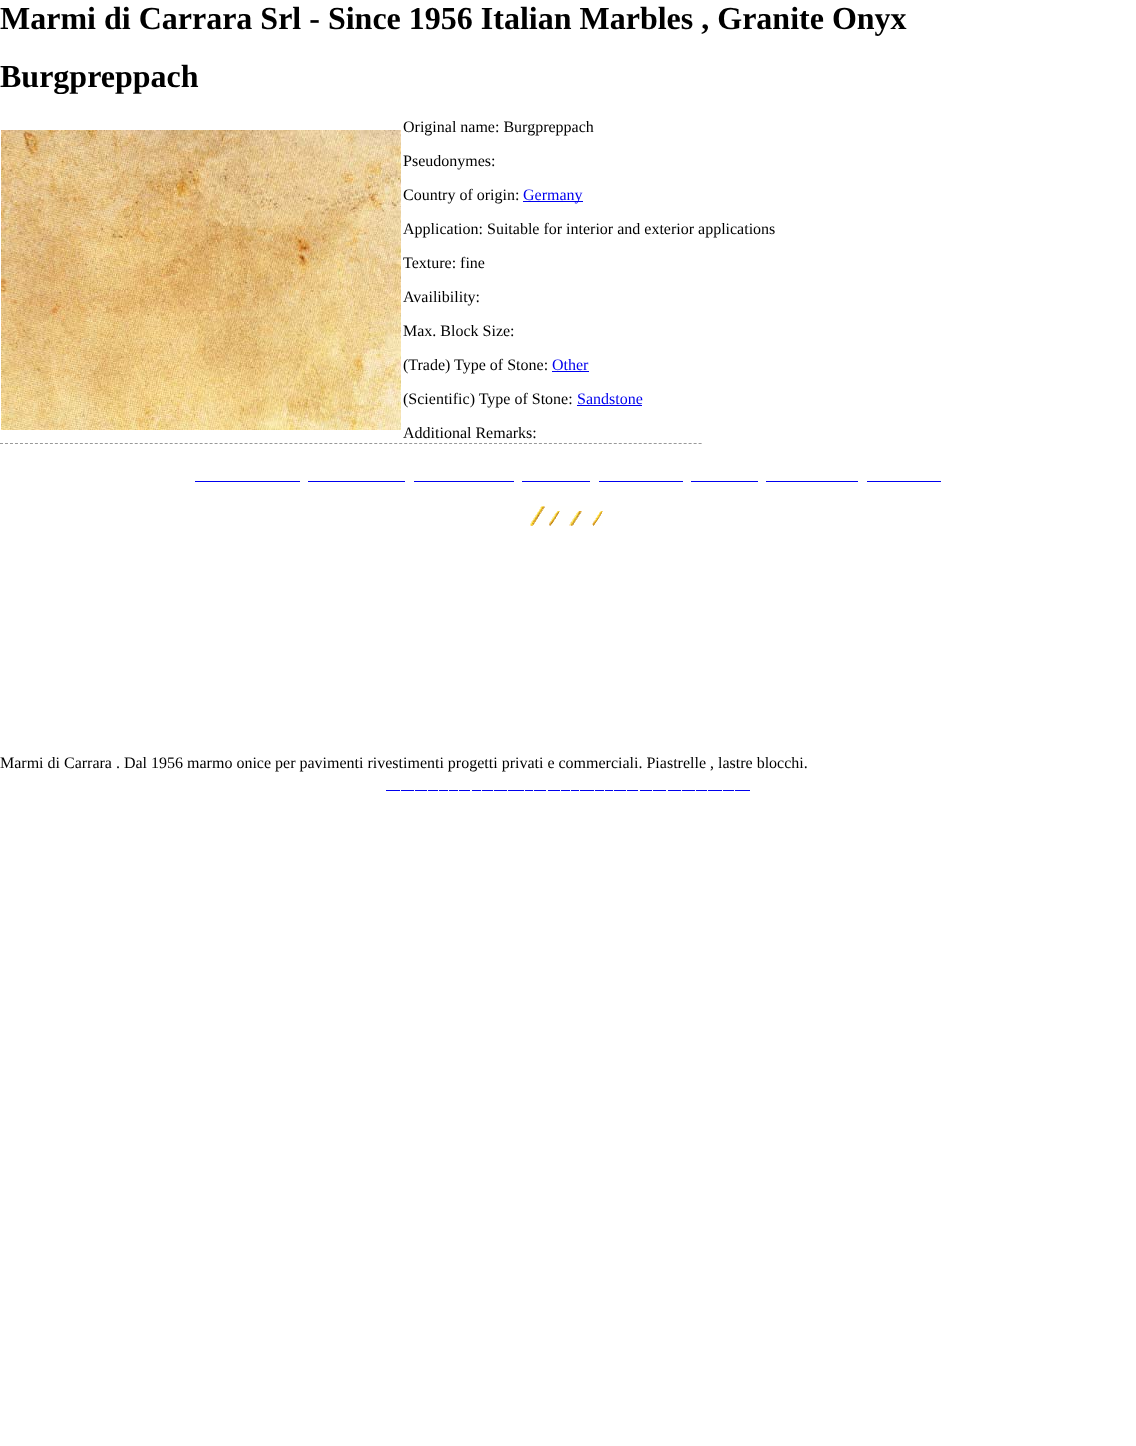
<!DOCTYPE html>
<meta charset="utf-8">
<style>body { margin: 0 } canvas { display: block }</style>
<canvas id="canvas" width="1136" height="1446"></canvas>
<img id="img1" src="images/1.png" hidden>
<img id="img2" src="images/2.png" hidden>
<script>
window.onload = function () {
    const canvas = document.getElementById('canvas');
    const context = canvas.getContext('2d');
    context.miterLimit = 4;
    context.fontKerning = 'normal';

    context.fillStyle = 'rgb(255, 255, 255)';
    context.fillRect(0, 0, 1136, 1446);
    context.drawImage(document.getElementById('img1'), 1, 130, 400, 300);
    context.fillStyle = 'rgb(0, 0, 238)';
    context.fillRect(523, 201, 60, 1);
    context.fillRect(552, 371, 37, 1);
    context.fillRect(577, 405, 65, 1);
    context.beginPath();
    context.moveTo(0, 443.5);
    context.lineTo(702, 443.5);
    context.strokeStyle = 'rgb(153, 153, 153)';
    context.setLineDash([3, 1.99]);
    context.stroke();
    context.fillRect(195, 481, 105, 1);
    context.fillRect(308, 481, 97, 1);
    context.fillRect(414, 481, 100, 1);
    context.fillRect(522, 481, 68, 1);
    context.fillRect(599, 481, 84, 1);
    context.fillRect(691, 481, 67, 1);
    context.fillRect(766, 481, 92, 1);
    context.fillRect(867, 481, 74, 1);
    context.drawImage(document.getElementById('img2'), 530, 506, 73, 20);
    context.fillRect(386, 790, 14, 1);
    context.fillRect(401, 790, 13, 1);
    context.fillRect(415, 790, 12, 1);
    context.fillRect(428, 790, 10, 1);
    context.fillRect(439, 790, 9, 1);
    context.fillRect(449, 790, 9, 1);
    context.fillRect(459, 790, 11, 1);
    context.fillRect(472, 790, 9, 1);
    context.fillRect(482, 790, 11, 1);
    context.fillRect(494, 790, 13, 1);
    context.fillRect(508, 790, 16, 1);
    context.fillRect(525, 790, 8, 1);
    context.fillRect(534, 790, 12, 1);
    context.fillRect(548, 790, 12, 1);
    context.fillRect(561, 790, 9, 1);
    context.fillRect(571, 790, 8, 1);
    context.fillRect(580, 790, 14, 1);
    context.fillRect(595, 790, 9, 1);
    context.fillRect(605, 790, 8, 1);
    context.fillRect(614, 790, 12, 1);
    context.fillRect(627, 790, 11, 1);
    context.fillRect(640, 790, 12, 1);
    context.fillRect(653, 790, 13, 1);
    context.fillRect(668, 790, 13, 1);
    context.fillRect(682, 790, 13, 1);
    context.fillRect(696, 790, 11, 1);
    context.fillRect(708, 790, 14, 1);
    context.fillRect(723, 790, 11, 1);
    context.fillRect(735, 790, 15, 1);
    context.font = 'bold 32px Liberation Serif';
    context.fillStyle = 'rgb(0, 0, 0)';
    context.fillText('Marmi di Carrara Srl - Since 1956 Italian Marbles , Granite Onyx', 0, 29);
    context.fillText('Burgpreppach', 0, 87);
    context.font = '16px Liberation Serif';
    context.fillText('Original name: Burgpreppach', 403, 132);
    context.fillText('Pseudonymes:', 403, 166);
    context.fillText('Country of origin:', 403, 200);
    context.fillStyle = 'rgb(0, 0, 238)';
    context.fillText('Germany', 523, 200);
    context.fillStyle = 'rgb(0, 0, 0)';
    context.fillText('Application: Suitable for interior and exterior applications', 403, 234);
    context.fillText('Texture: fine', 403, 268);
    context.fillText('Availibility:', 403, 302);
    context.fillText('Max. Block Size:', 403, 336);
    context.fillText('(Trade) Type of Stone:', 403, 370);
    context.fillStyle = 'rgb(0, 0, 238)';
    context.fillText('Other', 552, 370);
    context.fillStyle = 'rgb(0, 0, 0)';
    context.fillText('(Scientific) Type of Stone:', 403, 404);
    context.fillStyle = 'rgb(0, 0, 238)';
    context.fillText('Sandstone', 577, 404);
    context.fillStyle = 'rgb(0, 0, 0)';
    context.fillText('Additional Remarks:', 403, 438);
    context.fillText('Marmi di Carrara . Dal 1956 marmo onice per pavimenti rivestimenti progetti privati e commerciali. Piastrelle , lastre blocchi.', 0, 768);
};
</script>
